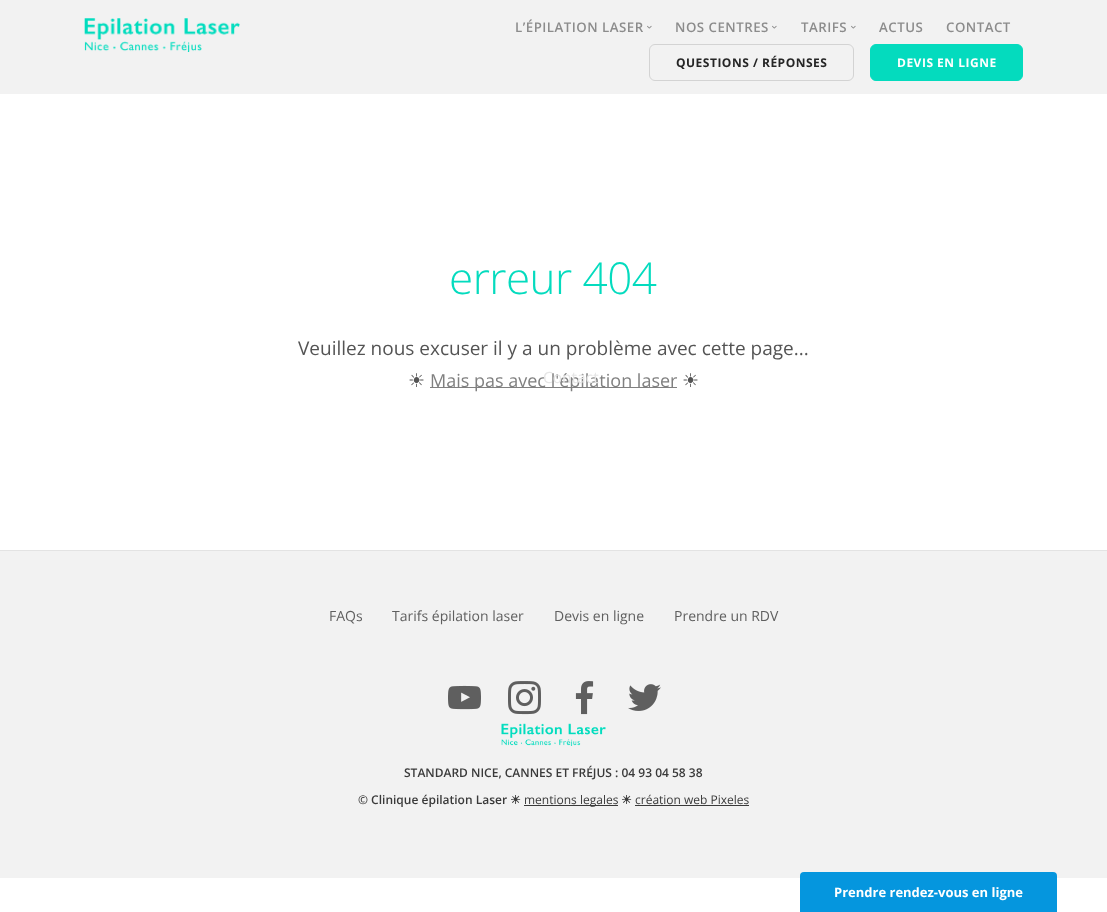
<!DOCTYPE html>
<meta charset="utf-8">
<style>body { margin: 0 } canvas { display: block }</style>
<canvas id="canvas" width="1107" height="912"></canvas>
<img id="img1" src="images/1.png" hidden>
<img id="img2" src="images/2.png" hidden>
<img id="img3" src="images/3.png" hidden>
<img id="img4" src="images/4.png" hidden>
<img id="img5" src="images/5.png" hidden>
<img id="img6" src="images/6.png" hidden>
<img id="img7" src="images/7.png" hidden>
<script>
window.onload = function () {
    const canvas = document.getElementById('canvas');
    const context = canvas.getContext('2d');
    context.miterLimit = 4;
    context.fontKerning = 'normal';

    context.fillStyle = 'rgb(255, 255, 255)';
    context.fillRect(0, 0, 1107, 912);
    context.fillStyle = 'rgb(242, 242, 242)';
    context.fillRect(0, 0, 1107, 94);
    context.drawImage(document.getElementById('img1'), 84, 18, 156, 34);
    context.drawImage(document.getElementById('img2'), 647, 25, 5, 4);
    context.drawImage(document.getElementById('img2'), 772, 25, 5, 4);
    context.drawImage(document.getElementById('img2'), 851, 25, 5, 4);
    context.beginPath();
    context.roundRect(649.5, 44.5, 204, 36, 5.5);
    context.strokeStyle = 'rgb(211, 211, 211)';
    context.stroke();
    context.fillStyle = 'rgb(4, 219, 190)';
    context.beginPath();
    context.roundRect(870.5, 44.5, 152, 36, 5.5);
    context.fill();
    context.strokeStyle = 'rgb(4, 219, 190)';
    context.stroke();
    context.fillStyle = 'rgb(128, 128, 128)';
    context.fillRect(430, 387, 247, 1);
    context.fillStyle = 'rgb(242, 242, 242)';
    context.fillRect(0, 551, 1107, 327);
    context.fillStyle = 'rgb(227, 227, 227)';
    context.fillRect(0, 550, 1107, 1);
    context.drawImage(document.getElementById('img3'), 448, 685, 33, 25);
    context.drawImage(document.getElementById('img4'), 508, 681, 33, 34);
    context.drawImage(document.getElementById('img5'), 575, 681, 19, 34);
    context.drawImage(document.getElementById('img6'), 628, 684, 33, 27);
    context.drawImage(document.getElementById('img7'), 501, 723, 105, 23);
    context.fillStyle = 'rgb(58, 58, 58)';
    context.fillRect(524, 805, 94, 1);
    context.fillRect(635, 805, 114, 1);
    context.fillStyle = 'rgb(5, 150, 222)';
    context.beginPath();
    context.roundRect(800, 872, 257, 40, [4, 4, 0, 0]);
    context.fill();
    context.letterSpacing = '0.5px';
    context.font = '600 13.25px Open Sans';
    context.fillStyle = 'rgb(140, 140, 140)';
    context.fillText('L’ÉPILATION LASER', 515, 32);
    context.fillText('NOS CENTRES', 675, 32);
    context.fillText('TARIFS', 801, 32);
    context.fillText('ACTUS', 879, 32);
    context.fillText('CONTACT', 946, 32);
    context.font = 'bold 12px Open Sans';
    context.fillStyle = 'rgb(37, 37, 37)';
    context.fillText('QUESTIONS / RÉPONSES', 676, 67);
    context.fillStyle = 'rgb(255, 255, 255)';
    context.fillText('DEVIS EN LIGNE', 897, 67);
    context.letterSpacing = '-0.5px';
    context.font = '300 44px Open Sans';
    context.fillStyle = 'rgb(4, 219, 190)';
    context.fillText('erreur 404', 449, 294);
    context.letterSpacing = '0px';
    context.font = '19px Open Sans';
    context.fillStyle = 'rgb(84, 84, 84)';
    context.fillText('Veuillez nous excuser il y a un problème avec cette page...', 298, 355);
    context.font = '19px DejaVu Sans';
    context.fillText('☀', 408, 387);
    context.font = '18px Open Sans';
    context.fillStyle = 'rgb(128, 128, 128)';
    context.fillText('Mais pas avec l\'épilation laser', 430, 387);
    context.font = '15.5px Open Sans';
    context.fillStyle = 'rgb(230, 230, 230)';
    context.fillText('Contact', 543, 383);
    context.font = '19px DejaVu Sans';
    context.fillStyle = 'rgb(84, 84, 84)';
    context.fillText('☀', 682, 387);
    context.font = '14px Open Sans';
    context.fillStyle = 'rgb(95, 95, 95)';
    context.fillText('FAQs', 329, 621);
    context.fillText('Tarifs épilation laser', 392, 621);
    context.fillText('Devis en ligne', 554, 621);
    context.fillText('Prendre un RDV', 674, 621);
    context.font = '600 12px Open Sans';
    context.fillStyle = 'rgb(58, 58, 58)';
    context.fillText('STANDARD NICE, CANNES ET FRÉJUS : 04 93 04 58 38', 404, 777);
    context.fillText('© Clinique épilation Laser', 358, 804);
    context.font = 'bold 12px DejaVu Sans';
    context.fillText('☀', 510, 804);
    context.font = '12px Open Sans';
    context.fillText('mentions legales', 524, 804);
    context.font = 'bold 12px DejaVu Sans';
    context.fillText('☀', 621, 804);
    context.font = '12px Open Sans';
    context.fillText('création web Pixeles', 635, 804);
    context.font = 'bold 13px Open Sans';
    context.fillStyle = 'rgb(255, 255, 255)';
    context.fillText('Prendre rendez-vous en ligne', 834, 897);
};
</script>
